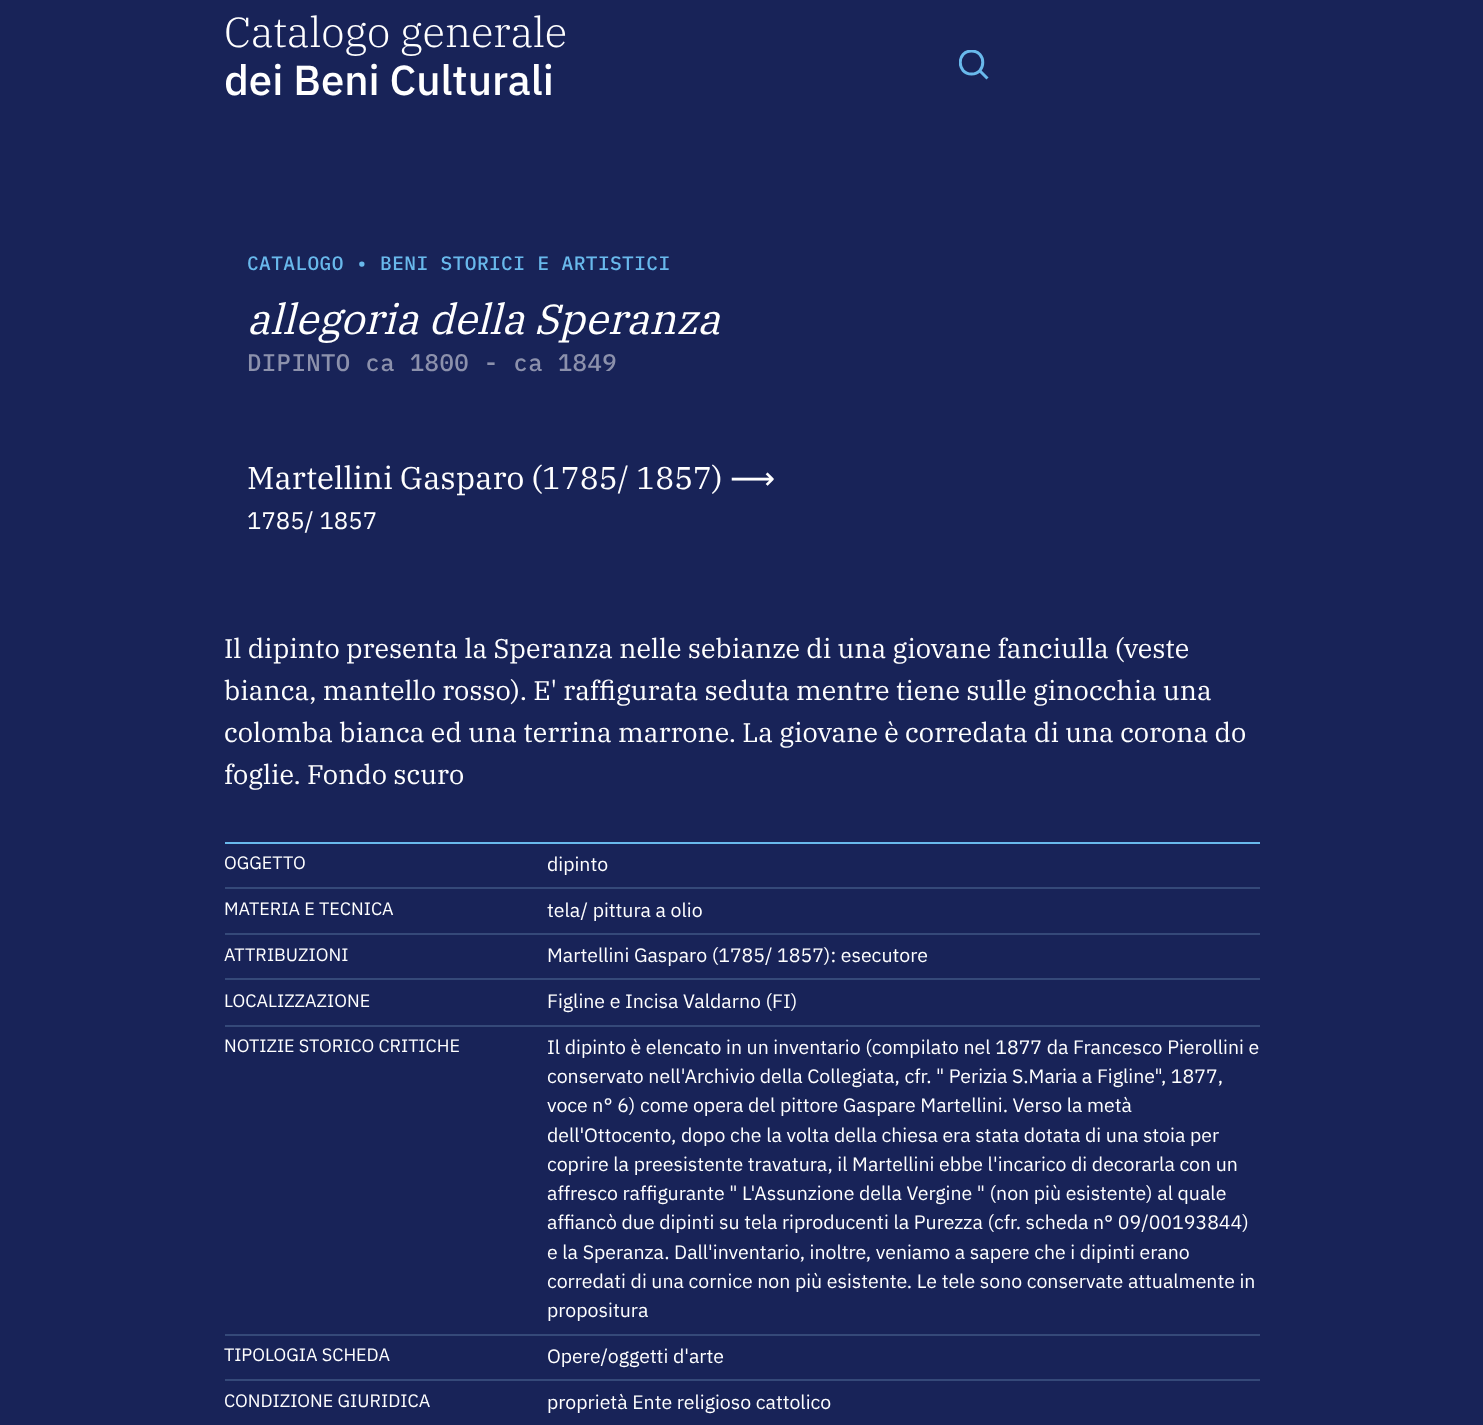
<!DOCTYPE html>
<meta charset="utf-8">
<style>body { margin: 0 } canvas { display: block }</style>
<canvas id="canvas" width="1483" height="1425"></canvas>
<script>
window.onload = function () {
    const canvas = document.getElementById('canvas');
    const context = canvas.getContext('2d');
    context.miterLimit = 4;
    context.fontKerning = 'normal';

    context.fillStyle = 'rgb(24, 35, 88)';
    context.fillRect(0, 0, 1483, 1425);
    context.save();
    context.beginPath();
    context.rect(959, 50, 30, 30);
    context.clip();
    context.beginPath();
    context.moveTo(971.5, 74);
    context.bezierCurveTo(986.5, 74, 986.5, 51, 971.5, 51);
    context.bezierCurveTo(956.5, 51, 956.5, 74, 971.5, 74);
    context.closePath();
    context.strokeStyle = 'rgb(105, 185, 236)';
    context.lineWidth = 3;
    context.stroke();
    context.restore();
    context.beginPath();
    context.moveTo(980, 71);
    context.lineTo(987.5, 78.5);
    context.strokeStyle = 'rgb(105, 185, 236)';
    context.lineWidth = 3;
    context.stroke();
    context.fillStyle = 'rgb(105, 185, 236)';
    context.fillRect(225, 842, 1035, 2);
    context.fillStyle = 'rgb(53, 73, 121)';
    context.fillRect(225, 887, 1035, 2);
    context.fillRect(225, 933, 1035, 2);
    context.fillRect(225, 978, 1035, 2);
    context.fillRect(225, 1025, 1035, 2);
    context.fillRect(225, 1334, 1035, 2);
    context.fillRect(225, 1379, 1035, 2);
    context.font = '300 42px IBM Plex Serif';
    context.fillStyle = 'rgb(255, 255, 255)';
    context.fillText('Catalogo generale', 224, 47);
    context.font = '500 42px IBM Plex Sans';
    context.fillText('dei Beni Culturali', 224, 95);
    context.letterSpacing = '0.4px';
    context.font = '500 19.5px IBM Plex Mono';
    context.fillStyle = 'rgb(105, 185, 236)';
    context.fillText('CATALOGO • BENI STORICI E ARTISTICI', 247, 270);
    context.letterSpacing = '0px';
    context.font = 'italic 42px IBM Plex Serif';
    context.fillStyle = 'rgb(255, 255, 255)';
    context.fillText('allegoria della Speranza', 247, 334);
    context.letterSpacing = '0.4px';
    context.font = '500 24px IBM Plex Mono';
    context.fillStyle = 'rgb(140, 145, 172)';
    context.fillText('DIPINTO ca 1800 - ca 1849', 247, 371);
    context.letterSpacing = '0px';
    context.font = '31.5px IBM Plex Serif';
    context.fillStyle = 'rgb(255, 255, 255)';
    context.fillText('Martellini Gasparo (1785/ 1857)', 247, 489);
    context.font = '31.5px DejaVu Sans';
    context.fillText('⟶', 730, 489);
    context.font = '24px IBM Plex Sans';
    context.fillText('1785/ 1857', 247, 529);
    context.font = '27px IBM Plex Serif';
    context.fillText('Il dipinto presenta la Speranza nelle sebianze di una giovane fanciulla (veste', 224, 658);
    context.fillText('bianca, mantello rosso). E\' raffigurata seduta mentre tiene sulle ginocchia una', 224, 700);
    context.fillText('colomba bianca ed una terrina marrone. La giovane è corredata di una corona do', 224, 742);
    context.fillText('foglie. Fondo scuro', 224, 784);
    context.font = '18px IBM Plex Sans';
    context.fillText('OGGETTO', 224, 869);
    context.font = '19.5px IBM Plex Sans';
    context.fillText('dipinto', 547, 871);
    context.font = '18px IBM Plex Sans';
    context.fillText('MATERIA E TECNICA', 224, 915);
    context.font = '19.5px IBM Plex Sans';
    context.fillText('tela/ pittura a olio', 547, 917);
    context.font = '18px IBM Plex Sans';
    context.fillText('ATTRIBUZIONI', 224, 961);
    context.font = '19.5px IBM Plex Sans';
    context.fillText('Martellini Gasparo (1785/ 1857): esecutore', 547, 962);
    context.font = '18px IBM Plex Sans';
    context.fillText('LOCALIZZAZIONE', 224, 1007);
    context.font = '19.5px IBM Plex Sans';
    context.fillText('Figline e Incisa Valdarno (FI)', 547, 1008);
    context.font = '18px IBM Plex Sans';
    context.fillText('NOTIZIE STORICO CRITICHE', 224, 1052);
    context.font = '19.5px IBM Plex Sans';
    context.fillText('Il dipinto è elencato in un inventario (compilato nel 1877 da Francesco Pierollini e', 547, 1054);
    context.fillText('conservato nell\'Archivio della Collegiata, cfr. " Perizia S.Maria a Figline", 1877,', 547, 1083);
    context.fillText('voce n° 6) come opera del pittore Gaspare Martellini. Verso la metà', 547, 1112);
    context.fillText('dell\'Ottocento, dopo che la volta della chiesa era stata dotata di una stoia per', 547, 1142);
    context.fillText('coprire la preesistente travatura, il Martellini ebbe l\'incarico di decorarla con un', 547, 1171);
    context.fillText('affresco raffigurante " L\'Assunzione della Vergine " (non più esistente) al quale', 547, 1200);
    context.fillText('affiancò due dipinti su tela riproducenti la Purezza (cfr. scheda n° 09/00193844)', 547, 1229);
    context.fillText('e la Speranza. Dall\'inventario, inoltre, veniamo a sapere che i dipinti erano', 547, 1259);
    context.fillText('corredati di una cornice non più esistente. Le tele sono conservate attualmente in', 547, 1288);
    context.fillText('propositura', 547, 1317);
    context.font = '18px IBM Plex Sans';
    context.fillText('TIPOLOGIA SCHEDA', 224, 1361);
    context.font = '19.5px IBM Plex Sans';
    context.fillText('Opere/oggetti d\'arte', 547, 1363);
    context.font = '18px IBM Plex Sans';
    context.fillText('CONDIZIONE GIURIDICA', 224, 1407);
    context.font = '19.5px IBM Plex Sans';
    context.fillText('proprietà Ente religioso cattolico', 547, 1409);
};
</script>
